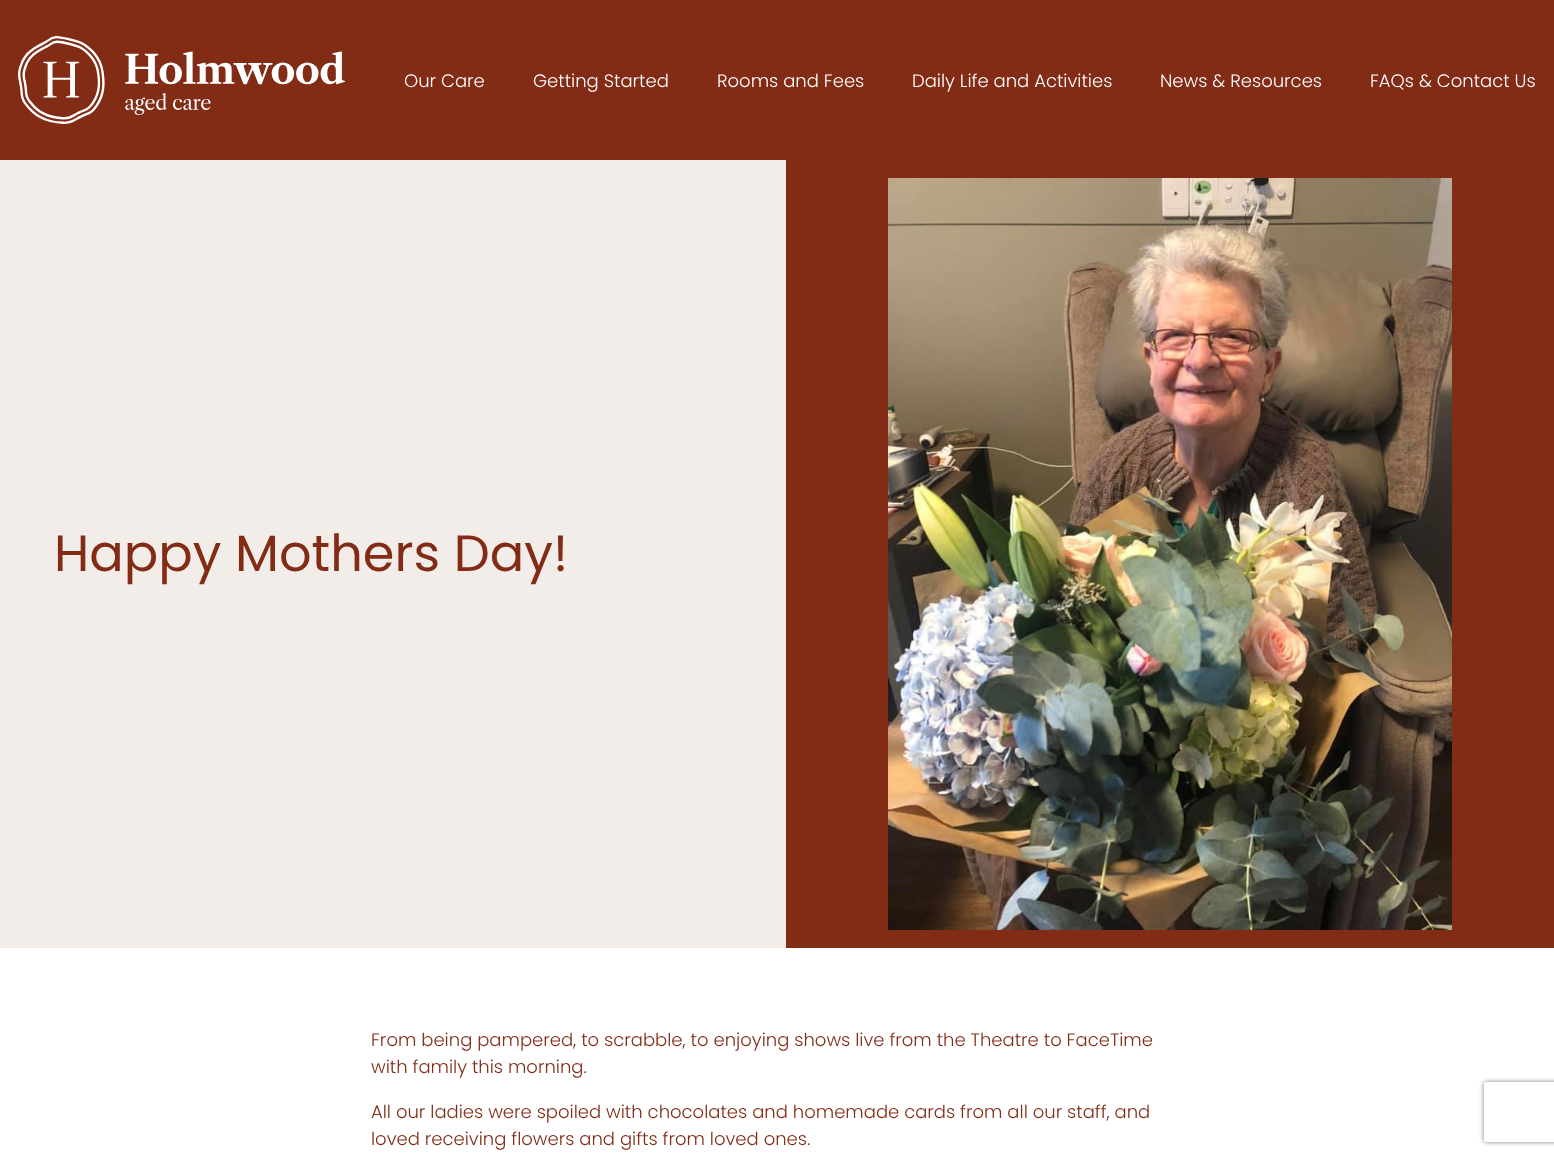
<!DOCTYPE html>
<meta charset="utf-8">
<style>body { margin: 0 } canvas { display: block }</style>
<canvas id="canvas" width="1554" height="1156"></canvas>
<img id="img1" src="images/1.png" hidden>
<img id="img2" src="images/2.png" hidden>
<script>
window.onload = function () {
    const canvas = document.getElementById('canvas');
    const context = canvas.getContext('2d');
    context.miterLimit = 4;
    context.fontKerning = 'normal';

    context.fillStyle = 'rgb(255, 255, 255)';
    context.fillRect(0, 0, 1554, 1156);
    context.fillStyle = 'rgb(130, 44, 22)';
    context.fillRect(0, 0, 1554, 160);
    context.drawImage(document.getElementById('img1'), 18, 36, 327, 88);
    context.fillStyle = 'rgb(243, 237, 233)';
    context.fillRect(0, 160, 786, 788);
    context.fillStyle = 'rgb(130, 44, 22)';
    context.fillRect(786, 160, 768, 788);
    context.drawImage(document.getElementById('img2'), 888, 178, 564, 752);
    context.save();
    context.beginPath();
    context.moveTo(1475, 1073);
    context.lineTo(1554, 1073);
    context.lineTo(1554, 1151);
    context.lineTo(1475, 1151);
    context.closePath();
    context.moveTo(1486, 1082);
    context.lineTo(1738, 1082);
    context.bezierCurveTo(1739, 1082, 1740, 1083, 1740, 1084);
    context.lineTo(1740, 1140);
    context.bezierCurveTo(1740, 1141, 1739, 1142, 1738, 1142);
    context.lineTo(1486, 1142);
    context.bezierCurveTo(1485, 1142, 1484, 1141, 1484, 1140);
    context.lineTo(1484, 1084);
    context.bezierCurveTo(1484, 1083, 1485, 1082, 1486, 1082);
    context.closePath();
    context.clip('evenodd');
    context.fillStyle = 'rgb(128, 128, 128)';
    context.filter = 'blur(2.5px)';
    context.beginPath();
    context.roundRect(1484, 1082, 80, 60, 2);
    context.fill();
    context.filter = 'none';
    context.restore();
    context.font = '300 18px Poppins';
    context.fillStyle = 'rgb(255, 255, 255)';
    context.fillText('Our Care', 404, 87);
    context.fillText('Getting Started', 533, 87);
    context.fillText('Rooms and Fees', 717, 87);
    context.fillText('Daily Life and Activities', 912, 87);
    context.fillText('News & Resources', 1160, 87);
    context.fillText('FAQs & Contact Us', 1370, 87);
    context.font = '51px Poppins';
    context.fillStyle = 'rgb(130, 44, 22)';
    context.fillText('Happy Mothers Day!', 54, 571);
    context.font = '300 18px Poppins';
    context.fillText('From being pampered, to scrabble, to enjoying shows live from the Theatre to FaceTime', 371, 1046);
    context.fillText('with family this morning.', 371, 1073);
    context.fillText('All our ladies were spoiled with chocolates and homemade cards from all our staff, and', 371, 1118);
    context.fillText('loved receiving flowers and gifts from loved ones.', 371, 1145);
};
</script>
